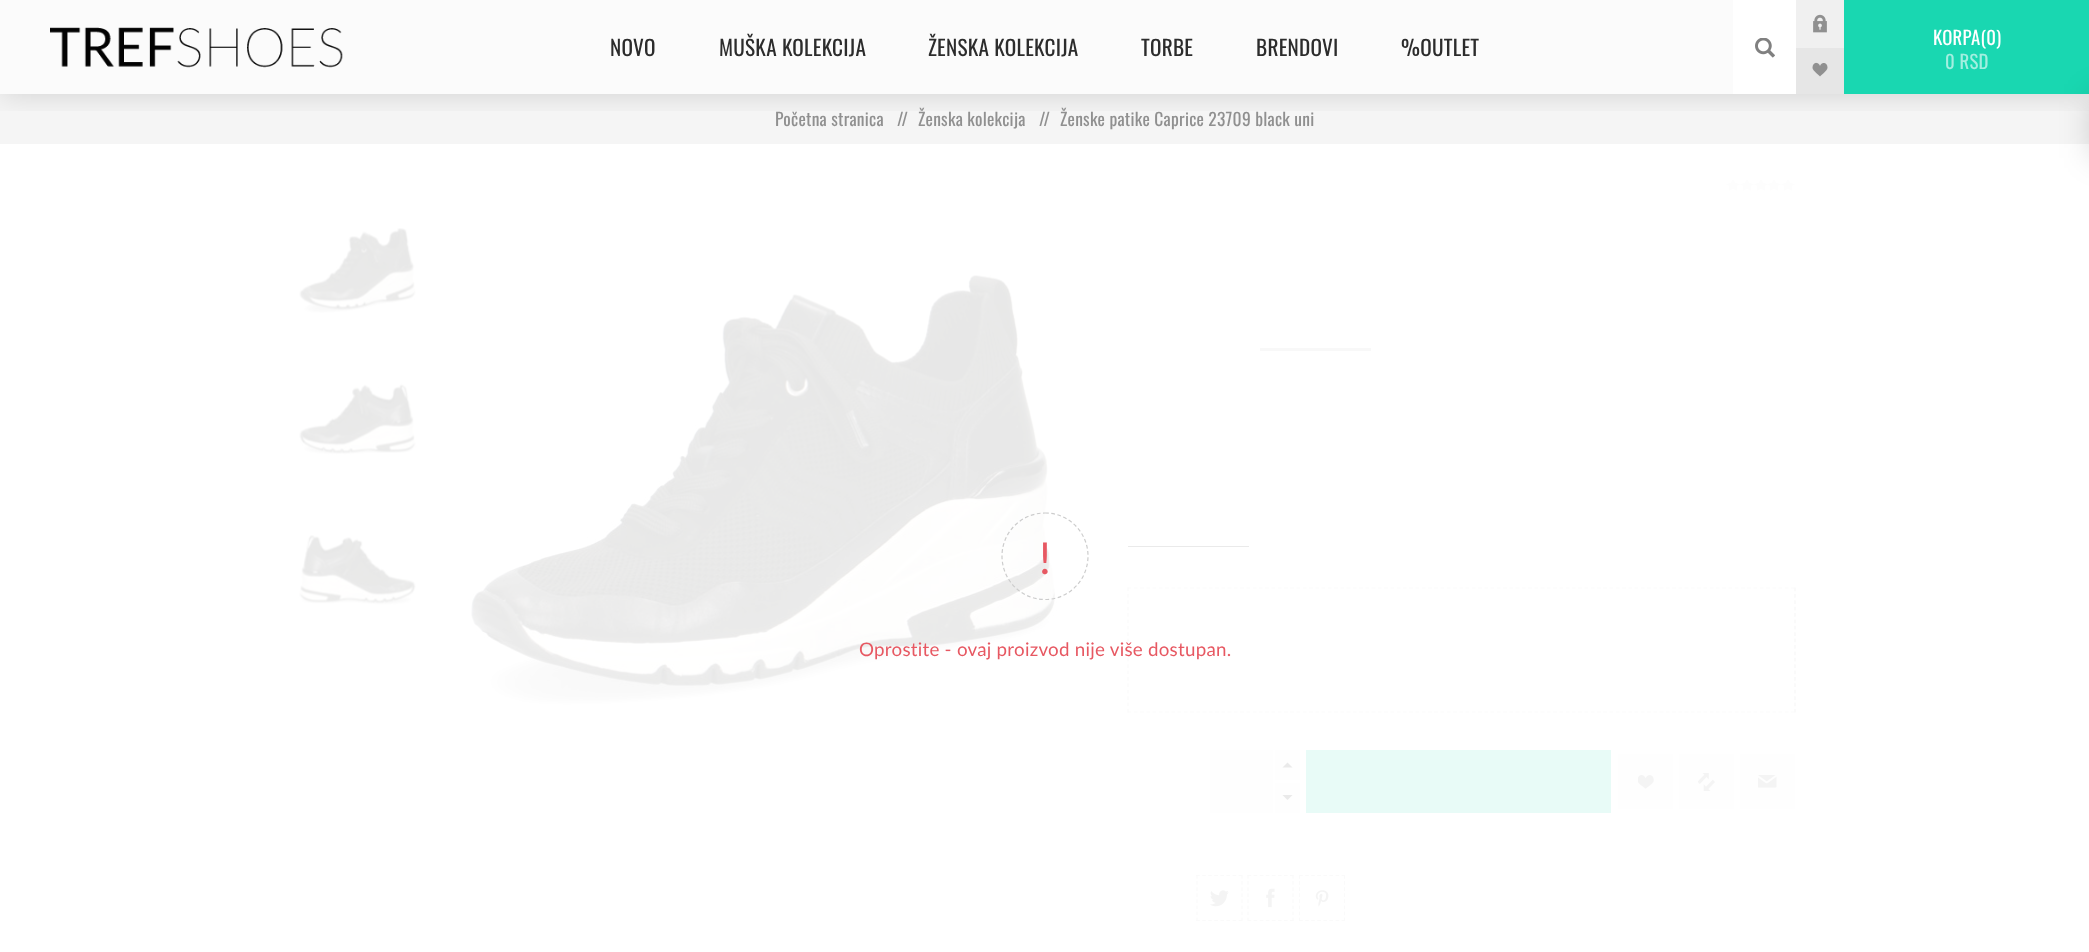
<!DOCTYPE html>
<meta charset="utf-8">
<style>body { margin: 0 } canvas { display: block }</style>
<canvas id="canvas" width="2089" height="952"></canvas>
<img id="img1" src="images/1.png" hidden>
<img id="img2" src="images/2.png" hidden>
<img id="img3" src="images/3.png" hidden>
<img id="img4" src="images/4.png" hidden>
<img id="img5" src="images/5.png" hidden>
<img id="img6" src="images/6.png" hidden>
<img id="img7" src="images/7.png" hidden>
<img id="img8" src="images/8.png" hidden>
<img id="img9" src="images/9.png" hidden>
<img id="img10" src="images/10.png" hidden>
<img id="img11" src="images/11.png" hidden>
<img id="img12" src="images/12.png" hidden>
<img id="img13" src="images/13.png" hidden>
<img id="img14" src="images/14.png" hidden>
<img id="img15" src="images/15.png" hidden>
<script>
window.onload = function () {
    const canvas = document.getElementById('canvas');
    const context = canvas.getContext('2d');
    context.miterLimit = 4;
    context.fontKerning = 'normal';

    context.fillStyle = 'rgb(240, 240, 240)';
    context.fillRect(0, 0, 2089, 952);
    context.fillStyle = 'rgb(245, 245, 245)';
    context.fillRect(0, 94, 2089, 50);
    context.save();
    context.beginPath();
    context.rect(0, 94, 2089, 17);
    context.clip();
    context.fillStyle = 'rgba(0, 0, 0, 0.15)';
    context.filter = 'blur(15.5px)';
    context.beginPath();
    context.rect(0, 0, 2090, 94);
    context.fill();
    context.filter = 'none';
    context.restore();
    context.fillStyle = 'rgba(255, 255, 255, 0.7)';
    context.fillRect(0, 0, 1733, 94);
    context.drawImage(document.getElementById('img1'), 50, 27, 293, 41);
    context.fillStyle = 'rgb(255, 255, 255)';
    context.fillRect(1733, 0, 63, 94);
    context.drawImage(document.getElementById('img2'), 1755, 38, 20, 20);
    context.drawImage(document.getElementById('img3'), 1813, 14, 14, 19);
    context.fillStyle = 'rgb(230, 230, 230)';
    context.fillRect(1796, 48, 48, 46);
    context.drawImage(document.getElementById('img4'), 1812, 62, 16, 15);
    context.fillStyle = 'rgb(25, 215, 177)';
    context.fillRect(1844, 0, 245, 94);
    context.fillStyle = 'rgb(255, 255, 255)';
    context.fillRect(0, 144, 2089, 808);
    context.fillStyle = 'rgba(0, 0, 0, 0.15)';
    context.filter = 'blur(15.5px)';
    context.beginPath();
    context.rect(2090, 94, 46, 64);
    context.fill();
    context.filter = 'none';
    context.drawImage(document.getElementById('img5'), 296, 226, 122, 88);
    context.drawImage(document.getElementById('img6'), 297, 367, 121, 93);
    context.drawImage(document.getElementById('img7'), 297, 518, 121, 90);
    context.drawImage(document.getElementById('img8'), 467, 193, 608, 512);
    context.fillStyle = 'rgb(229, 229, 229)';
    context.fillRect(1726, 179, 69, 12);
    context.drawImage(document.getElementById('img9'), 1726, 179, 69, 12);
    context.fillStyle = 'rgb(178, 178, 178)';
    context.fillRect(1260, 348, 111, 3);
    context.fillStyle = 'rgb(44, 44, 44)';
    context.fillRect(1128, 546, 121, 1);
    context.beginPath();
    context.moveTo(1127.5, 588);
    context.lineTo(1795, 588);
    context.strokeStyle = 'rgb(204, 204, 204)';
    context.lineWidth = 1.2;
    context.setLineDash([3.75, 2.51]);
    context.stroke();
    context.beginPath();
    context.moveTo(1794.5, 587.5);
    context.lineTo(1794.5, 712.5);
    context.setLineDash([3.75, 2.64]);
    context.stroke();
    context.beginPath();
    context.moveTo(1127.5, 712);
    context.lineTo(1795, 712);
    context.setLineDash([3.75, 2.51]);
    context.stroke();
    context.beginPath();
    context.moveTo(1128, 587.5);
    context.lineTo(1128, 712.5);
    context.setLineDash([3.75, 2.64]);
    context.stroke();
    context.fillStyle = 'rgb(240, 240, 240)';
    context.fillRect(1210, 750, 63, 63);
    context.fillRect(1275, 750, 25, 30);
    context.fillStyle = 'rgb(44, 44, 44)';
    context.beginPath();
    context.moveTo(1292.5, 767.5);
    context.lineTo(1282.5, 767.5);
    context.lineTo(1287.5, 762.5);
    context.closePath();
    context.fill();
    context.fillStyle = 'rgb(240, 240, 240)';
    context.fillRect(1275, 783, 25, 30);
    context.fillStyle = 'rgb(44, 44, 44)';
    context.beginPath();
    context.moveTo(1282.5, 795);
    context.lineTo(1292.5, 795);
    context.lineTo(1287.5, 800);
    context.closePath();
    context.fill();
    context.fillStyle = 'rgb(25, 215, 177)';
    context.fillRect(1306, 750, 305, 63);
    context.fillStyle = 'rgb(237, 237, 237)';
    context.fillRect(1618, 754, 55, 55);
    context.drawImage(document.getElementById('img10'), 1638, 775, 16, 14);
    context.fillRect(1679, 754, 55, 55);
    context.drawImage(document.getElementById('img11'), 1698, 773, 17, 18);
    context.fillRect(1740, 754, 55, 55);
    context.drawImage(document.getElementById('img12'), 1758, 775, 19, 13);
    context.save();
    context.beginPath();
    context.rect(1194, 875, 154, 49);
    context.clip();
    context.beginPath();
    context.moveTo(1196, 875.5);
    context.lineTo(1242.5, 875.5);
    context.setLineDash([3.75, 2.33]);
    context.stroke();
    context.restore();
    context.beginPath();
    context.moveTo(1242, 875);
    context.lineTo(1242, 921);
    context.moveTo(1196, 920.5);
    context.lineTo(1242.5, 920.5);
    context.moveTo(1197, 875);
    context.lineTo(1197, 921);
    context.setLineDash([3.75, 2.33]);
    context.stroke();
    context.drawImage(document.getElementById('img13'), 1210, 890, 19, 17);
    context.save();
    context.beginPath();
    context.rect(1194, 875, 154, 49);
    context.clip();
    context.beginPath();
    context.moveTo(1247.5, 875.5);
    context.lineTo(1294, 875.5);
    context.stroke();
    context.restore();
    context.beginPath();
    context.moveTo(1293, 875);
    context.lineTo(1293, 921);
    context.moveTo(1247.5, 920.5);
    context.lineTo(1294, 920.5);
    context.moveTo(1248, 875);
    context.lineTo(1248, 921);
    context.stroke();
    context.drawImage(document.getElementById('img14'), 1266, 888, 9, 20);
    context.save();
    context.beginPath();
    context.rect(1194, 875, 154, 49);
    context.clip();
    context.beginPath();
    context.moveTo(1299, 875.5);
    context.lineTo(1345, 875.5);
    context.stroke();
    context.restore();
    context.beginPath();
    context.moveTo(1344.5, 875);
    context.lineTo(1344.5, 921);
    context.moveTo(1299, 920.5);
    context.lineTo(1345, 920.5);
    context.moveTo(1299.5, 875);
    context.lineTo(1299.5, 921);
    context.stroke();
    context.drawImage(document.getElementById('img15'), 1315, 890, 14, 17);
    context.fillStyle = 'rgba(255, 255, 255, 0.9)';
    context.fillRect(296, 179, 1499, 743);
    context.beginPath();
    context.moveTo(1045, 513);
    context.bezierCurveTo(1069, 513, 1088, 532.5, 1088, 556);
    context.bezierCurveTo(1088, 580, 1069, 599.5, 1045, 599.5);
    context.bezierCurveTo(1021, 599.5, 1002, 580, 1002, 556);
    context.bezierCurveTo(1002, 532.5, 1021, 513, 1045, 513);
    context.closePath();
    context.setLineDash([3.75, 2.5]);
    context.stroke();
    context.letterSpacing = '0.25px';
    context.font = '21.25px Oswald';
    context.fillStyle = 'rgb(44, 44, 44)';
    context.fillText('NOVO', 610, 56);
    context.fillText('MUŠKA KOLEKCIJA', 719, 56);
    context.fillText('ŽENSKA KOLEKCIJA', 928, 56);
    context.fillText('TORBE', 1141, 56);
    context.fillText('BRENDOVI', 1256, 56);
    context.fillText('%OUTLET', 1401, 56);
    context.font = '18.75px Oswald';
    context.fillStyle = 'rgb(255, 255, 255)';
    context.fillText('KORPA(0)', 1933, 45);
    context.fillStyle = 'rgb(163, 239, 224)';
    context.fillText('0 RSD', 1945, 69);
    context.font = '17.5px Oswald';
    context.fillStyle = 'rgb(144, 144, 144)';
    context.fillText('Početna stranica', 775, 126);
    context.letterSpacing = '-2px';
    context.fillText('//', 897, 126);
    context.letterSpacing = '0.25px';
    context.fillText('Ženska kolekcija', 918, 126);
    context.letterSpacing = '-2px';
    context.fillText('//', 1039, 126);
    context.letterSpacing = '0.25px';
    context.fillText('Ženske patike Caprice 23709 black uni', 1060, 126);
    context.font = '44px Lato';
    context.fillStyle = 'rgb(231, 88, 98)';
    context.fillText('!', 1039, 574);
    context.font = '18.75px Lato';
    context.fillText('Oprostite - ovaj proizvod nije više dostupan.', 859, 656);
};
</script>
